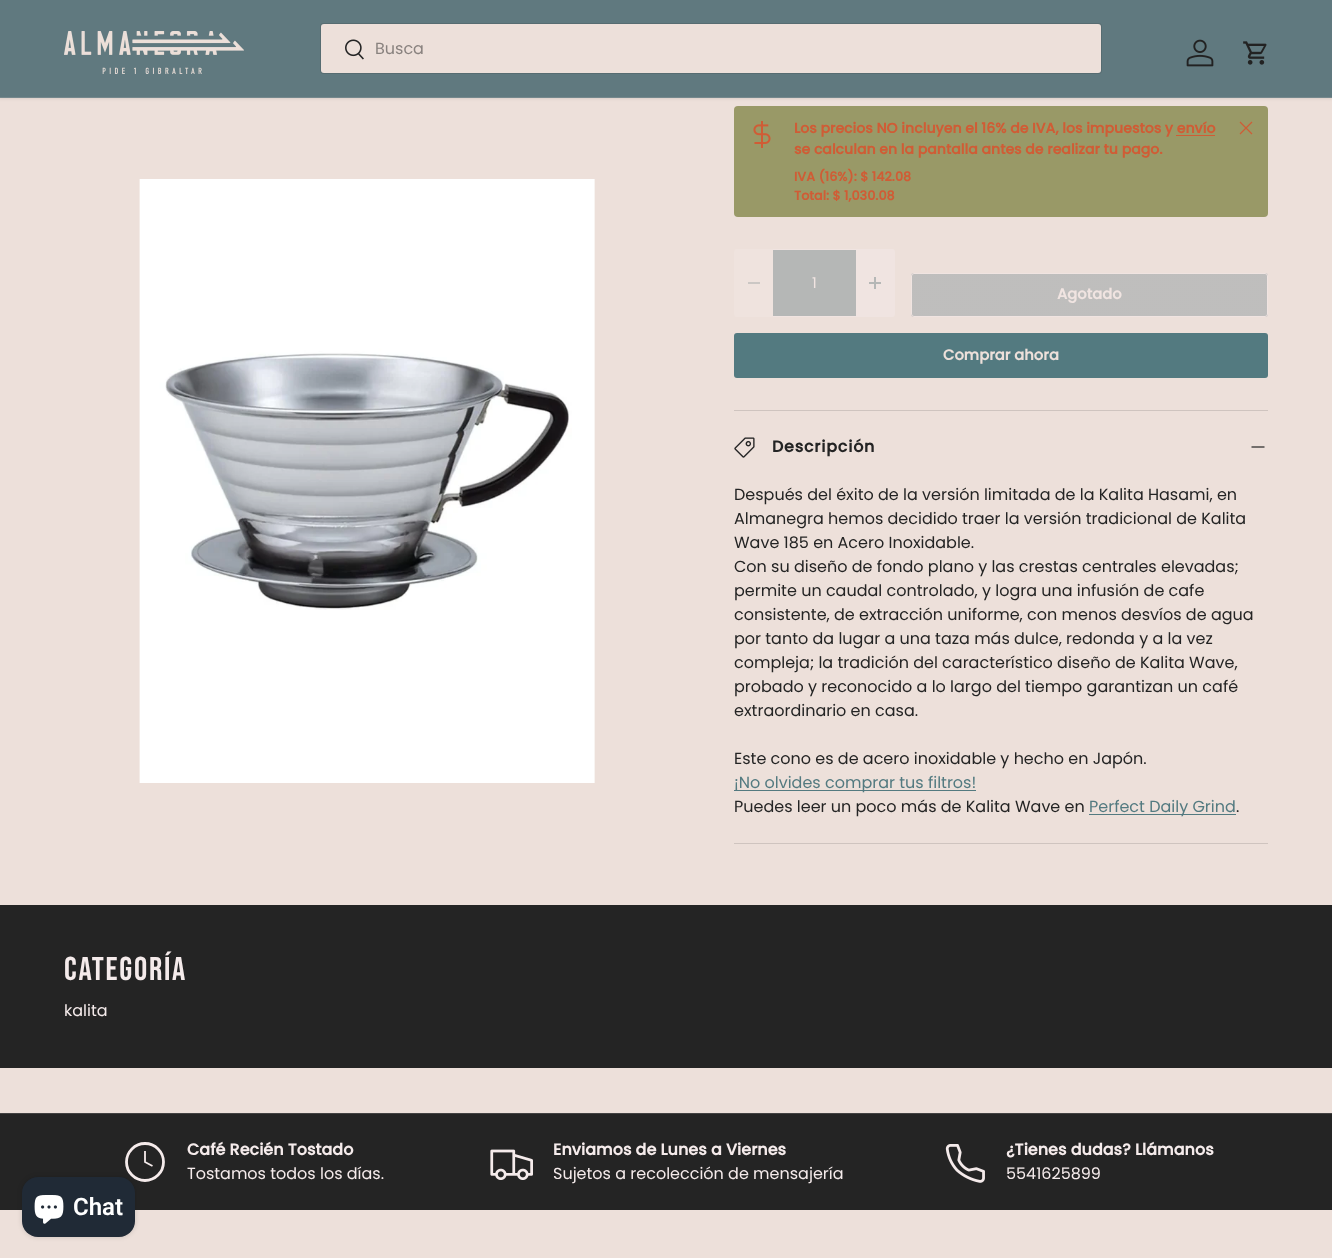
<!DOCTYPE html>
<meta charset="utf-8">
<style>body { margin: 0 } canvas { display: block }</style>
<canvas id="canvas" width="1332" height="1258"></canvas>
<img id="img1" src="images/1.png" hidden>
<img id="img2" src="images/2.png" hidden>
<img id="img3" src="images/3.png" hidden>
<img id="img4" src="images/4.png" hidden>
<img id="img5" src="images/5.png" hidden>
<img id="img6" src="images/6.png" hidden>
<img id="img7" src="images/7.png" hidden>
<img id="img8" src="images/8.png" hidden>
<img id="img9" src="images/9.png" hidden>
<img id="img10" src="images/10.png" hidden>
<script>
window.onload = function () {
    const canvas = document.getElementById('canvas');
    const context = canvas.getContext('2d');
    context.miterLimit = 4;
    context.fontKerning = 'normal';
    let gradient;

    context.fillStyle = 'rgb(237, 224, 218)';
    context.fillRect(0, 0, 1332, 1258);
    context.fillStyle = 'rgba(0, 0, 0, 0.08)';
    context.filter = 'blur(1.5px)';
    context.beginPath();
    context.rect(-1, -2, 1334, 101);
    context.fill();
    context.filter = 'none';
    context.fillStyle = 'rgb(96, 121, 127)';
    context.fillRect(0, 0, 1332, 97);
    context.drawImage(document.getElementById('img1'), 64, 31, 180, 43);
    context.beginPath();
    context.roundRect(320.5, 23.5, 781, 50, 2.5);
    context.strokeStyle = 'rgb(87, 108, 113)';
    context.stroke();
    context.fillStyle = 'rgb(237, 224, 218)';
    context.beginPath();
    context.roundRect(321, 24, 780, 49, 3);
    context.fill();
    context.drawImage(document.getElementById('img2'), 345, 39, 19, 21);
    context.drawImage(document.getElementById('img3'), 1186, 39, 28, 28);
    context.drawImage(document.getElementById('img4'), 1243, 41, 24, 24);
    context.fillStyle = 'rgb(117, 136, 141)';
    context.fillRect(0, 97, 1332, 1);
    context.drawImage(document.getElementById('img5'), 139, 179, 456, 604);
    context.fillStyle = 'rgb(153, 153, 103)';
    context.beginPath();
    context.roundRect(734, 106, 534, 111, 4);
    context.fill();
    context.drawImage(document.getElementById('img6'), 753, 121, 18, 27);
    context.fillStyle = 'rgb(208, 92, 53)';
    context.fillRect(1176, 135, 39, 1);
    context.beginPath();
    context.moveTo(1240, 134);
    context.lineTo(1252, 122);
    context.moveTo(1240, 122);
    context.lineTo(1252, 134);
    context.strokeStyle = 'rgb(208, 92, 53)';
    context.lineWidth = 1.2;
    context.lineJoin = 'round';
    context.stroke();
    context.fillStyle = 'rgb(239, 227, 222)';
    context.beginPath();
    context.roundRect(734, 249, 39, 68, [3, 0, 0, 3]);
    context.fill();
    context.fillStyle = 'rgb(203, 199, 196)';
    context.fillRect(748, 282, 12, 2);
    context.fillStyle = 'rgb(181, 183, 182)';
    context.fillRect(773, 250, 83, 66);
    context.fillStyle = 'rgb(240, 228, 225)';
    context.fillRect(773, 316, 83, 1);
    context.fillRect(773, 249, 83, 1);
    context.beginPath();
    context.roundRect(856, 249, 39, 68, [0, 3, 3, 0]);
    context.fill();
    context.fillStyle = 'rgb(181, 183, 182)';
    context.fillRect(869, 282, 12, 2);
    context.fillRect(874, 277, 2, 12);
    context.fillStyle = 'rgb(187, 187, 186)';
    context.beginPath();
    context.roundRect(911, 273, 357, 44, 3);
    context.fill();
    gradient = context.createLinearGradient(938, 169, 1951, 421);
    gradient.addColorStop(0.6, 'rgba(240, 228, 225, 0.07)');
    gradient.addColorStop(0.6, 'rgb(181, 183, 182)');
    gradient.addColorStop(1, 'rgb(181, 183, 182)');
    context.fillStyle = gradient;
    context.fillRect(912, 274, 356, 42);
    context.beginPath();
    context.roundRect(911.5, 273.5, 356, 43, 2.5);
    context.strokeStyle = 'rgb(240, 228, 225)';
    context.lineWidth = 1;
    context.lineJoin = 'miter';
    context.stroke();
    gradient = context.createLinearGradient(-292, 166, 1226, 545);
    gradient.addColorStop(0.6, 'rgb(114, 145, 150)');
    gradient.addColorStop(0.6, 'rgb(83, 122, 128)');
    gradient.addColorStop(1, 'rgb(83, 122, 128)');
    context.fillStyle = gradient;
    context.beginPath();
    context.roundRect(734, 333, 534, 45, 3);
    context.fill();
    context.fillStyle = 'rgb(207, 196, 191)';
    context.fillRect(734, 410, 534, 1);
    context.fillRect(734, 843, 534, 1);
    context.drawImage(document.getElementById('img7'), 734, 437, 21, 21);
    context.beginPath();
    context.moveTo(1251.5, 447);
    context.lineTo(1264.5, 447);
    context.strokeStyle = 'rgb(36, 36, 36)';
    context.lineWidth = 1.2;
    context.stroke();
    context.fillStyle = 'rgb(83, 122, 128)';
    context.fillRect(734, 790, 242, 1);
    context.fillRect(1089, 814, 147, 1);
    context.fillStyle = 'rgb(36, 36, 36)';
    context.fillRect(0, 905, 1332, 163);
    context.fillRect(0, 1114, 1332, 96);
    context.fillStyle = 'rgb(67, 66, 66)';
    context.fillRect(0, 1113, 1332, 1);
    context.beginPath();
    context.arc(145, 1162, 18.5, 0, 2 * Math.PI);
    context.strokeStyle = 'rgb(245, 235, 235)';
    context.lineWidth = 2.8;
    context.stroke();
    context.beginPath();
    context.moveTo(145, 1151);
    context.lineTo(145, 1162);
    context.lineTo(152.5, 1166);
    context.lineWidth = 1.8;
    context.stroke();
    context.drawImage(document.getElementById('img8'), 490, 1149, 43, 31);
    context.drawImage(document.getElementById('img9'), 945, 1144, 40, 39);
    context.fillStyle = 'rgba(0, 0, 0, 0.15)';
    context.filter = 'blur(2.5px)';
    context.beginPath();
    context.roundRect(22, 1177, 113, 60, 16);
    context.fill();
    context.filter = 'none';
    context.fillStyle = 'rgb(32, 42, 54)';
    context.beginPath();
    context.roundRect(22, 1177, 113, 60, 16);
    context.fill();
    context.drawImage(document.getElementById('img10'), 34, 1195, 30, 29);
    context.font = '16px Poppins';
    context.fillStyle = 'rgb(137, 130, 127)';
    context.fillText('Busca', 375, 54);
    context.font = 'bold 14.1px Poppins';
    context.fillStyle = 'rgb(208, 92, 53)';
    context.fillText('Los precios NO incluyen el 16% de IVA, los impuestos y envío', 794, 133);
    context.fillText('se calculan en la pantalla antes de realizar tu pago.', 794, 154);
    context.font = 'bold 12.75px Poppins';
    context.fillText('IVA (16%): $ 142.08', 794, 181);
    context.fillText('Total: $ 1,030.08', 794, 200);
    context.font = '14.75px Poppins';
    context.fillStyle = 'rgb(240, 228, 225)';
    context.fillText('1', 812, 288);
    context.font = 'bold 14.75px Poppins';
    context.fillText('Agotado', 1057, 299);
    context.fillStyle = 'rgb(237, 224, 218)';
    context.fillText('Comprar ahora', 943, 360);
    context.letterSpacing = '0.75px';
    context.font = 'bold 16px Poppins';
    context.fillStyle = 'rgb(36, 36, 36)';
    context.fillText('Descripción', 772, 452);
    context.letterSpacing = '0px';
    context.font = '16px Poppins';
    context.fillText('Después del éxito de la versión limitada de la Kalita Hasami, en', 734, 500);
    context.fillText('Almanegra hemos decidido traer la versión tradicional de Kalita', 734, 524);
    context.fillText('Wave 185 en Acero Inoxidable.', 734, 548);
    context.fillText('Con su diseño de fondo plano y las crestas centrales elevadas;', 734, 572);
    context.fillText('permite un caudal controlado, y logra una infusión de cafe', 734, 596);
    context.fillText('consistente, de extracción uniforme, con menos desvíos de agua', 734, 620);
    context.fillText('por tanto da lugar a una taza más dulce, redonda y a la vez', 734, 644);
    context.fillText('compleja; la tradición del característico diseño de Kalita Wave,', 734, 668);
    context.fillText('probado y reconocido a lo largo del tiempo garantizan un café', 734, 692);
    context.fillText('extraordinario en casa.', 734, 716);
    context.fillText('Este cono es de acero inoxidable y hecho en Japón.', 734, 764);
    context.fillStyle = 'rgb(83, 122, 128)';
    context.fillText('¡No olvides comprar tus filtros!', 734, 788);
    context.fillStyle = 'rgb(36, 36, 36)';
    context.fillText('Puedes leer un poco más de Kalita Wave en', 734, 812);
    context.fillStyle = 'rgb(83, 122, 128)';
    context.fillText('Perfect Daily Grind', 1089, 812);
    context.fillStyle = 'rgb(36, 36, 36)';
    context.fillText('.', 1236, 812);
    context.letterSpacing = '1.75px';
    context.font = '33px Bebas Neue';
    context.fillStyle = 'rgb(245, 235, 235)';
    context.fillText('Categoría', 64, 980);
    context.letterSpacing = '0px';
    context.font = '16px Poppins';
    context.fillText('kalita', 64, 1016);
    context.font = 'bold 16px Poppins';
    context.fillText('Café Recién Tostado', 187, 1155);
    context.font = '16px Poppins';
    context.fillText('Tostamos todos los días.', 187, 1179);
    context.font = 'bold 16px Poppins';
    context.fillText('Enviamos de Lunes a Viernes', 553, 1155);
    context.font = '16px Poppins';
    context.fillText('Sujetos a recolección de mensajería', 553, 1179);
    context.font = 'bold 16px Poppins';
    context.fillText('¿Tienes dudas? Llámanos', 1006, 1155);
    context.font = '16px Poppins';
    context.fillText('5541625899', 1006, 1179);
    context.font = '600 24px Roboto';
    context.fillStyle = 'rgb(255, 255, 255)';
    context.fillText('Chat', 73, 1215);
};
</script>
